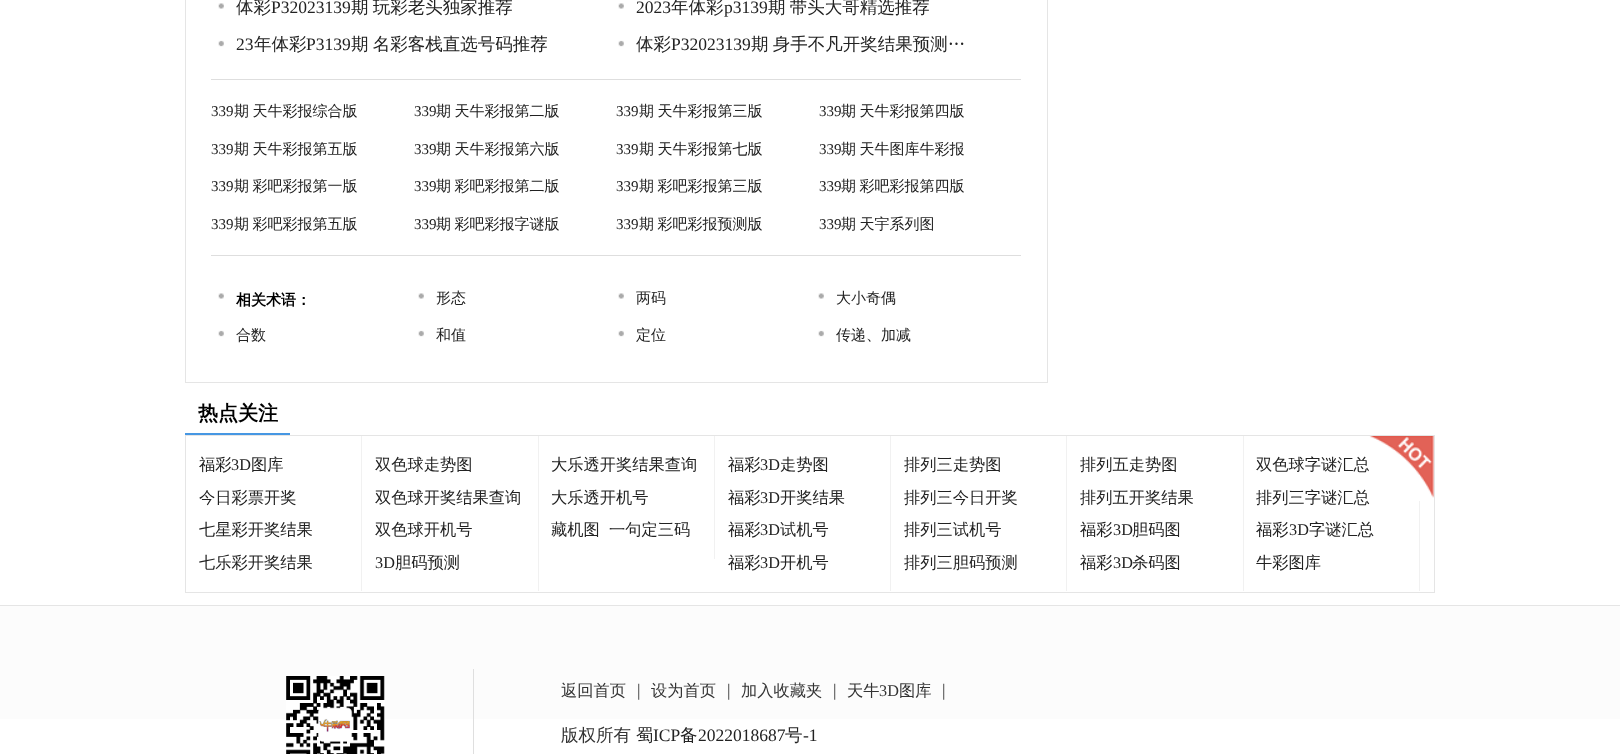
<!DOCTYPE html>
<meta charset="utf-8">
<style>body { margin: 0 } canvas { display: block }</style>
<canvas id="canvas" width="1620" height="754"></canvas>
<img id="img1" src="images/1.png" hidden>
<img id="img2" src="images/2.png" hidden>
<img id="img3" src="images/4.png" hidden>
<img id="img4" src="images/3.png" hidden>
<script>
window.onload = function () {
    const canvas = document.getElementById('canvas');
    const context = canvas.getContext('2d');
    context.miterLimit = 4;
    context.fontKerning = 'normal';

    context.fillStyle = 'rgb(255, 255, 255)';
    context.fillRect(0, 0, 1620, 754);
    context.strokeStyle = 'rgb(229, 229, 229)';
    context.strokeRect(185.5, -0.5, 862, 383);
    context.fillStyle = 'rgb(222, 222, 222)';
    context.fillRect(211, 79, 810, 1);
    context.drawImage(document.getElementById('img1'), 218, 3, 6, 6);
    context.drawImage(document.getElementById('img1'), 618, 3, 6, 6);
    context.drawImage(document.getElementById('img2'), 218, 40, 6, 7);
    context.drawImage(document.getElementById('img2'), 618, 40, 6, 7);
    context.fillRect(211, 255, 810, 1);
    context.drawImage(document.getElementById('img1'), 218, 293, 6, 6);
    context.drawImage(document.getElementById('img1'), 418, 293, 6, 6);
    context.drawImage(document.getElementById('img1'), 618, 293, 6, 6);
    context.drawImage(document.getElementById('img1'), 818, 293, 6, 6);
    context.drawImage(document.getElementById('img2'), 218, 330, 6, 7);
    context.drawImage(document.getElementById('img2'), 418, 330, 6, 7);
    context.drawImage(document.getElementById('img2'), 618, 330, 6, 7);
    context.drawImage(document.getElementById('img2'), 818, 330, 6, 7);
    context.fillStyle = 'rgb(70, 151, 227)';
    context.fillRect(185, 433, 105, 2);
    context.strokeRect(185.5, 435.5, 1249, 157);
    context.fillStyle = 'rgb(241, 241, 241)';
    context.fillRect(361, 436, 1, 155);
    context.fillRect(538, 436, 1, 155);
    context.fillRect(714, 436, 1, 123);
    context.fillRect(890, 436, 1, 155);
    context.fillRect(1066, 436, 1, 155);
    context.fillRect(1243, 436, 1, 155);
    context.fillRect(1419, 501, 1, 90);
    context.fillStyle = 'rgb(252, 252, 252)';
    context.fillRect(0, 606, 1620, 113);
    context.fillStyle = 'rgb(229, 229, 229)';
    context.fillRect(0, 605, 1620, 1);
    context.drawImage(document.getElementById('img3'), 286, 676, 99, 78);
    context.fillStyle = 'rgb(223, 223, 223)';
    context.fillRect(473, 669, 1, 85);
    context.font = '500 17.5px WenQuanYi Zen Hei';
    context.fillStyle = 'rgb(34, 34, 34)';
    context.fillText('体彩', 236, 13);
    context.font = '17.5px Liberation Serif';
    context.fillText('P32023139', 271, 13);
    context.wordSpacing = '-1px';
    context.font = '500 17.5px WenQuanYi Zen Hei';
    context.fillText('期 玩彩老头独家推荐', 351, 13);
    context.wordSpacing = '0px';
    context.font = '17.5px Liberation Serif';
    context.fillText('2023', 636, 13);
    context.font = '500 17.5px WenQuanYi Zen Hei';
    context.fillText('年体彩', 671, 13);
    context.font = '17.5px Liberation Serif';
    context.fillText('p3139', 724, 13);
    context.wordSpacing = '-1px';
    context.font = '500 17.5px WenQuanYi Zen Hei';
    context.fillText('期 带头大哥精选推荐', 768, 13);
    context.wordSpacing = '0px';
    context.font = '17.5px Liberation Serif';
    context.fillText('23', 236, 50);
    context.font = '500 17.5px WenQuanYi Zen Hei';
    context.fillText('年体彩', 254, 50);
    context.font = '17.5px Liberation Serif';
    context.fillText('P3139', 306, 50);
    context.wordSpacing = '-1px';
    context.font = '500 17.5px WenQuanYi Zen Hei';
    context.fillText('期 名彩客栈直选号码推荐', 351, 50);
    context.wordSpacing = '0px';
    context.fillText('体彩', 636, 50);
    context.font = '17.5px Liberation Serif';
    context.fillText('P32023139', 671, 50);
    context.wordSpacing = '-1px';
    context.font = '500 17.5px WenQuanYi Zen Hei';
    context.fillText('期 身手不凡开奖结果预测…', 751, 50);
    context.wordSpacing = '0px';
    context.font = '15px Liberation Serif';
    context.fillText('339', 211, 116);
    context.wordSpacing = '-1px';
    context.font = '500 15px WenQuanYi Zen Hei';
    context.fillText('期 天牛彩报综合版', 234, 116);
    context.wordSpacing = '0px';
    context.font = '15px Liberation Serif';
    context.fillText('339', 414, 116);
    context.wordSpacing = '-1px';
    context.font = '500 15px WenQuanYi Zen Hei';
    context.fillText('期 天牛彩报第二版', 436, 116);
    context.wordSpacing = '0px';
    context.font = '15px Liberation Serif';
    context.fillText('339', 616, 116);
    context.wordSpacing = '-1px';
    context.font = '500 15px WenQuanYi Zen Hei';
    context.fillText('期 天牛彩报第三版', 639, 116);
    context.wordSpacing = '0px';
    context.font = '15px Liberation Serif';
    context.fillText('339', 819, 116);
    context.wordSpacing = '-1px';
    context.font = '500 15px WenQuanYi Zen Hei';
    context.fillText('期 天牛彩报第四版', 841, 116);
    context.wordSpacing = '0px';
    context.font = '15px Liberation Serif';
    context.fillText('339', 211, 154);
    context.wordSpacing = '-1px';
    context.font = '500 15px WenQuanYi Zen Hei';
    context.fillText('期 天牛彩报第五版', 234, 154);
    context.wordSpacing = '0px';
    context.font = '15px Liberation Serif';
    context.fillText('339', 414, 154);
    context.wordSpacing = '-1px';
    context.font = '500 15px WenQuanYi Zen Hei';
    context.fillText('期 天牛彩报第六版', 436, 154);
    context.wordSpacing = '0px';
    context.font = '15px Liberation Serif';
    context.fillText('339', 616, 154);
    context.wordSpacing = '-1px';
    context.font = '500 15px WenQuanYi Zen Hei';
    context.fillText('期 天牛彩报第七版', 639, 154);
    context.wordSpacing = '0px';
    context.font = '15px Liberation Serif';
    context.fillText('339', 819, 154);
    context.wordSpacing = '-1px';
    context.font = '500 15px WenQuanYi Zen Hei';
    context.fillText('期 天牛图库牛彩报', 841, 154);
    context.wordSpacing = '0px';
    context.font = '15px Liberation Serif';
    context.fillText('339', 211, 191);
    context.wordSpacing = '-1px';
    context.font = '500 15px WenQuanYi Zen Hei';
    context.fillText('期 彩吧彩报第一版', 234, 191);
    context.wordSpacing = '0px';
    context.font = '15px Liberation Serif';
    context.fillText('339', 414, 191);
    context.wordSpacing = '-1px';
    context.font = '500 15px WenQuanYi Zen Hei';
    context.fillText('期 彩吧彩报第二版', 436, 191);
    context.wordSpacing = '0px';
    context.font = '15px Liberation Serif';
    context.fillText('339', 616, 191);
    context.wordSpacing = '-1px';
    context.font = '500 15px WenQuanYi Zen Hei';
    context.fillText('期 彩吧彩报第三版', 639, 191);
    context.wordSpacing = '0px';
    context.font = '15px Liberation Serif';
    context.fillText('339', 819, 191);
    context.wordSpacing = '-1px';
    context.font = '500 15px WenQuanYi Zen Hei';
    context.fillText('期 彩吧彩报第四版', 841, 191);
    context.wordSpacing = '0px';
    context.font = '15px Liberation Serif';
    context.fillText('339', 211, 229);
    context.wordSpacing = '-1px';
    context.font = '500 15px WenQuanYi Zen Hei';
    context.fillText('期 彩吧彩报第五版', 234, 229);
    context.wordSpacing = '0px';
    context.font = '15px Liberation Serif';
    context.fillText('339', 414, 229);
    context.wordSpacing = '-1px';
    context.font = '500 15px WenQuanYi Zen Hei';
    context.fillText('期 彩吧彩报字谜版', 436, 229);
    context.wordSpacing = '0px';
    context.font = '15px Liberation Serif';
    context.fillText('339', 616, 229);
    context.wordSpacing = '-1px';
    context.font = '500 15px WenQuanYi Zen Hei';
    context.fillText('期 彩吧彩报预测版', 639, 229);
    context.wordSpacing = '0px';
    context.font = '15px Liberation Serif';
    context.fillText('339', 819, 229);
    context.wordSpacing = '-1px';
    context.font = '500 15px WenQuanYi Zen Hei';
    context.fillText('期 天宇系列图', 841, 229);
    context.wordSpacing = '0px';
    context.font = 'bold 15px WenQuanYi Zen Hei';
    context.fillStyle = 'rgb(0, 0, 0)';
    context.fillText('相关术语：', 236, 305);
    context.font = '500 15px WenQuanYi Zen Hei';
    context.fillStyle = 'rgb(34, 34, 34)';
    context.fillText('形态', 436, 303);
    context.fillText('两码', 636, 303);
    context.fillText('大小奇偶', 836, 303);
    context.fillText('合数', 236, 340);
    context.fillText('和值', 436, 340);
    context.fillText('定位', 636, 340);
    context.fillText('传递、加减', 836, 340);
    context.font = 'bold 20px WenQuanYi Zen Hei';
    context.fillStyle = 'rgb(0, 0, 0)';
    context.fillText('热点关注', 198, 420);
    context.font = '500 16.25px WenQuanYi Zen Hei';
    context.fillStyle = 'rgb(34, 34, 34)';
    context.fillText('福彩', 199, 470);
    context.font = '16.25px Liberation Serif';
    context.fillText('3D', 231, 470);
    context.font = '500 16.25px WenQuanYi Zen Hei';
    context.fillText('图库', 251, 470);
    context.fillText('今日彩票开奖', 199, 503);
    context.fillText('七星彩开奖结果', 199, 535);
    context.fillText('七乐彩开奖结果', 199, 568);
    context.fillText('双色球走势图', 375, 470);
    context.fillText('双色球开奖结果查询', 375, 503);
    context.fillText('双色球开机号', 375, 535);
    context.font = '16.25px Liberation Serif';
    context.fillText('3D', 375, 568);
    context.font = '500 16.25px WenQuanYi Zen Hei';
    context.fillText('胆码预测', 395, 568);
    context.fillText('大乐透开奖结果查询', 551, 470);
    context.fillText('大乐透开机号', 551, 503);
    context.fillText('藏机图', 551, 535);
    context.fillText('一句定三码', 609, 535);
    context.fillText('福彩', 728, 470);
    context.font = '16.25px Liberation Serif';
    context.fillText('3D', 760, 470);
    context.font = '500 16.25px WenQuanYi Zen Hei';
    context.fillText('走势图', 780, 470);
    context.fillText('福彩', 728, 503);
    context.font = '16.25px Liberation Serif';
    context.fillText('3D', 760, 503);
    context.font = '500 16.25px WenQuanYi Zen Hei';
    context.fillText('开奖结果', 780, 503);
    context.fillText('福彩', 728, 535);
    context.font = '16.25px Liberation Serif';
    context.fillText('3D', 760, 535);
    context.font = '500 16.25px WenQuanYi Zen Hei';
    context.fillText('试机号', 780, 535);
    context.fillText('福彩', 728, 568);
    context.font = '16.25px Liberation Serif';
    context.fillText('3D', 760, 568);
    context.font = '500 16.25px WenQuanYi Zen Hei';
    context.fillText('开机号', 780, 568);
    context.fillText('排列三走势图', 904, 470);
    context.fillText('排列三今日开奖', 904, 503);
    context.fillText('排列三试机号', 904, 535);
    context.fillText('排列三胆码预测', 904, 568);
    context.fillText('排列五走势图', 1080, 470);
    context.fillText('排列五开奖结果', 1080, 503);
    context.fillText('福彩', 1080, 535);
    context.font = '16.25px Liberation Serif';
    context.fillText('3D', 1113, 535);
    context.font = '500 16.25px WenQuanYi Zen Hei';
    context.fillText('胆码图', 1132, 535);
    context.fillText('福彩', 1080, 568);
    context.font = '16.25px Liberation Serif';
    context.fillText('3D', 1113, 568);
    context.font = '500 16.25px WenQuanYi Zen Hei';
    context.fillText('杀码图', 1132, 568);
    context.fillText('双色球字谜汇总', 1256, 470);
    context.fillText('排列三字谜汇总', 1256, 503);
    context.fillText('福彩', 1256, 535);
    context.font = '16.25px Liberation Serif';
    context.fillText('3D', 1289, 535);
    context.font = '500 16.25px WenQuanYi Zen Hei';
    context.fillText('字谜汇总', 1309, 535);
    context.fillText('牛彩图库', 1256, 568);
    context.drawImage(document.getElementById('img4'), 1368, 436, 66, 65);
    context.fillStyle = 'rgb(51, 51, 51)';
    context.fillText('返回首页', 561, 696);
    context.font = '17.5px Liberation Serif';
    context.fillText('|', 637, 696);
    context.font = '500 16.25px WenQuanYi Zen Hei';
    context.fillText('设为首页', 651, 696);
    context.font = '17.5px Liberation Serif';
    context.fillText('|', 727, 696);
    context.font = '500 16.25px WenQuanYi Zen Hei';
    context.fillText('加入收藏夹', 741, 696);
    context.font = '17.5px Liberation Serif';
    context.fillText('|', 833, 696);
    context.font = '500 16.25px WenQuanYi Zen Hei';
    context.fillText('天牛', 847, 696);
    context.font = '16.25px Liberation Serif';
    context.fillText('3D', 879, 696);
    context.font = '500 16.25px WenQuanYi Zen Hei';
    context.fillText('图库', 899, 696);
    context.font = '17.5px Liberation Serif';
    context.fillText('|', 942, 696);
    context.font = '500 17.5px WenQuanYi Zen Hei';
    context.fillText('版权所有', 561, 741);
    context.fillStyle = 'rgb(34, 34, 34)';
    context.fillText('蜀', 636, 741);
    context.font = '17.5px Liberation Serif';
    context.fillText('ICP', 653, 741);
    context.font = '500 17.5px WenQuanYi Zen Hei';
    context.fillText('备', 680, 741);
    context.font = '17.5px Liberation Serif';
    context.fillText('2022018687', 698, 741);
    context.font = '500 17.5px WenQuanYi Zen Hei';
    context.fillText('号', 785, 741);
    context.font = '17.5px Liberation Serif';
    context.fillText('-1', 803, 741);
};
</script>
